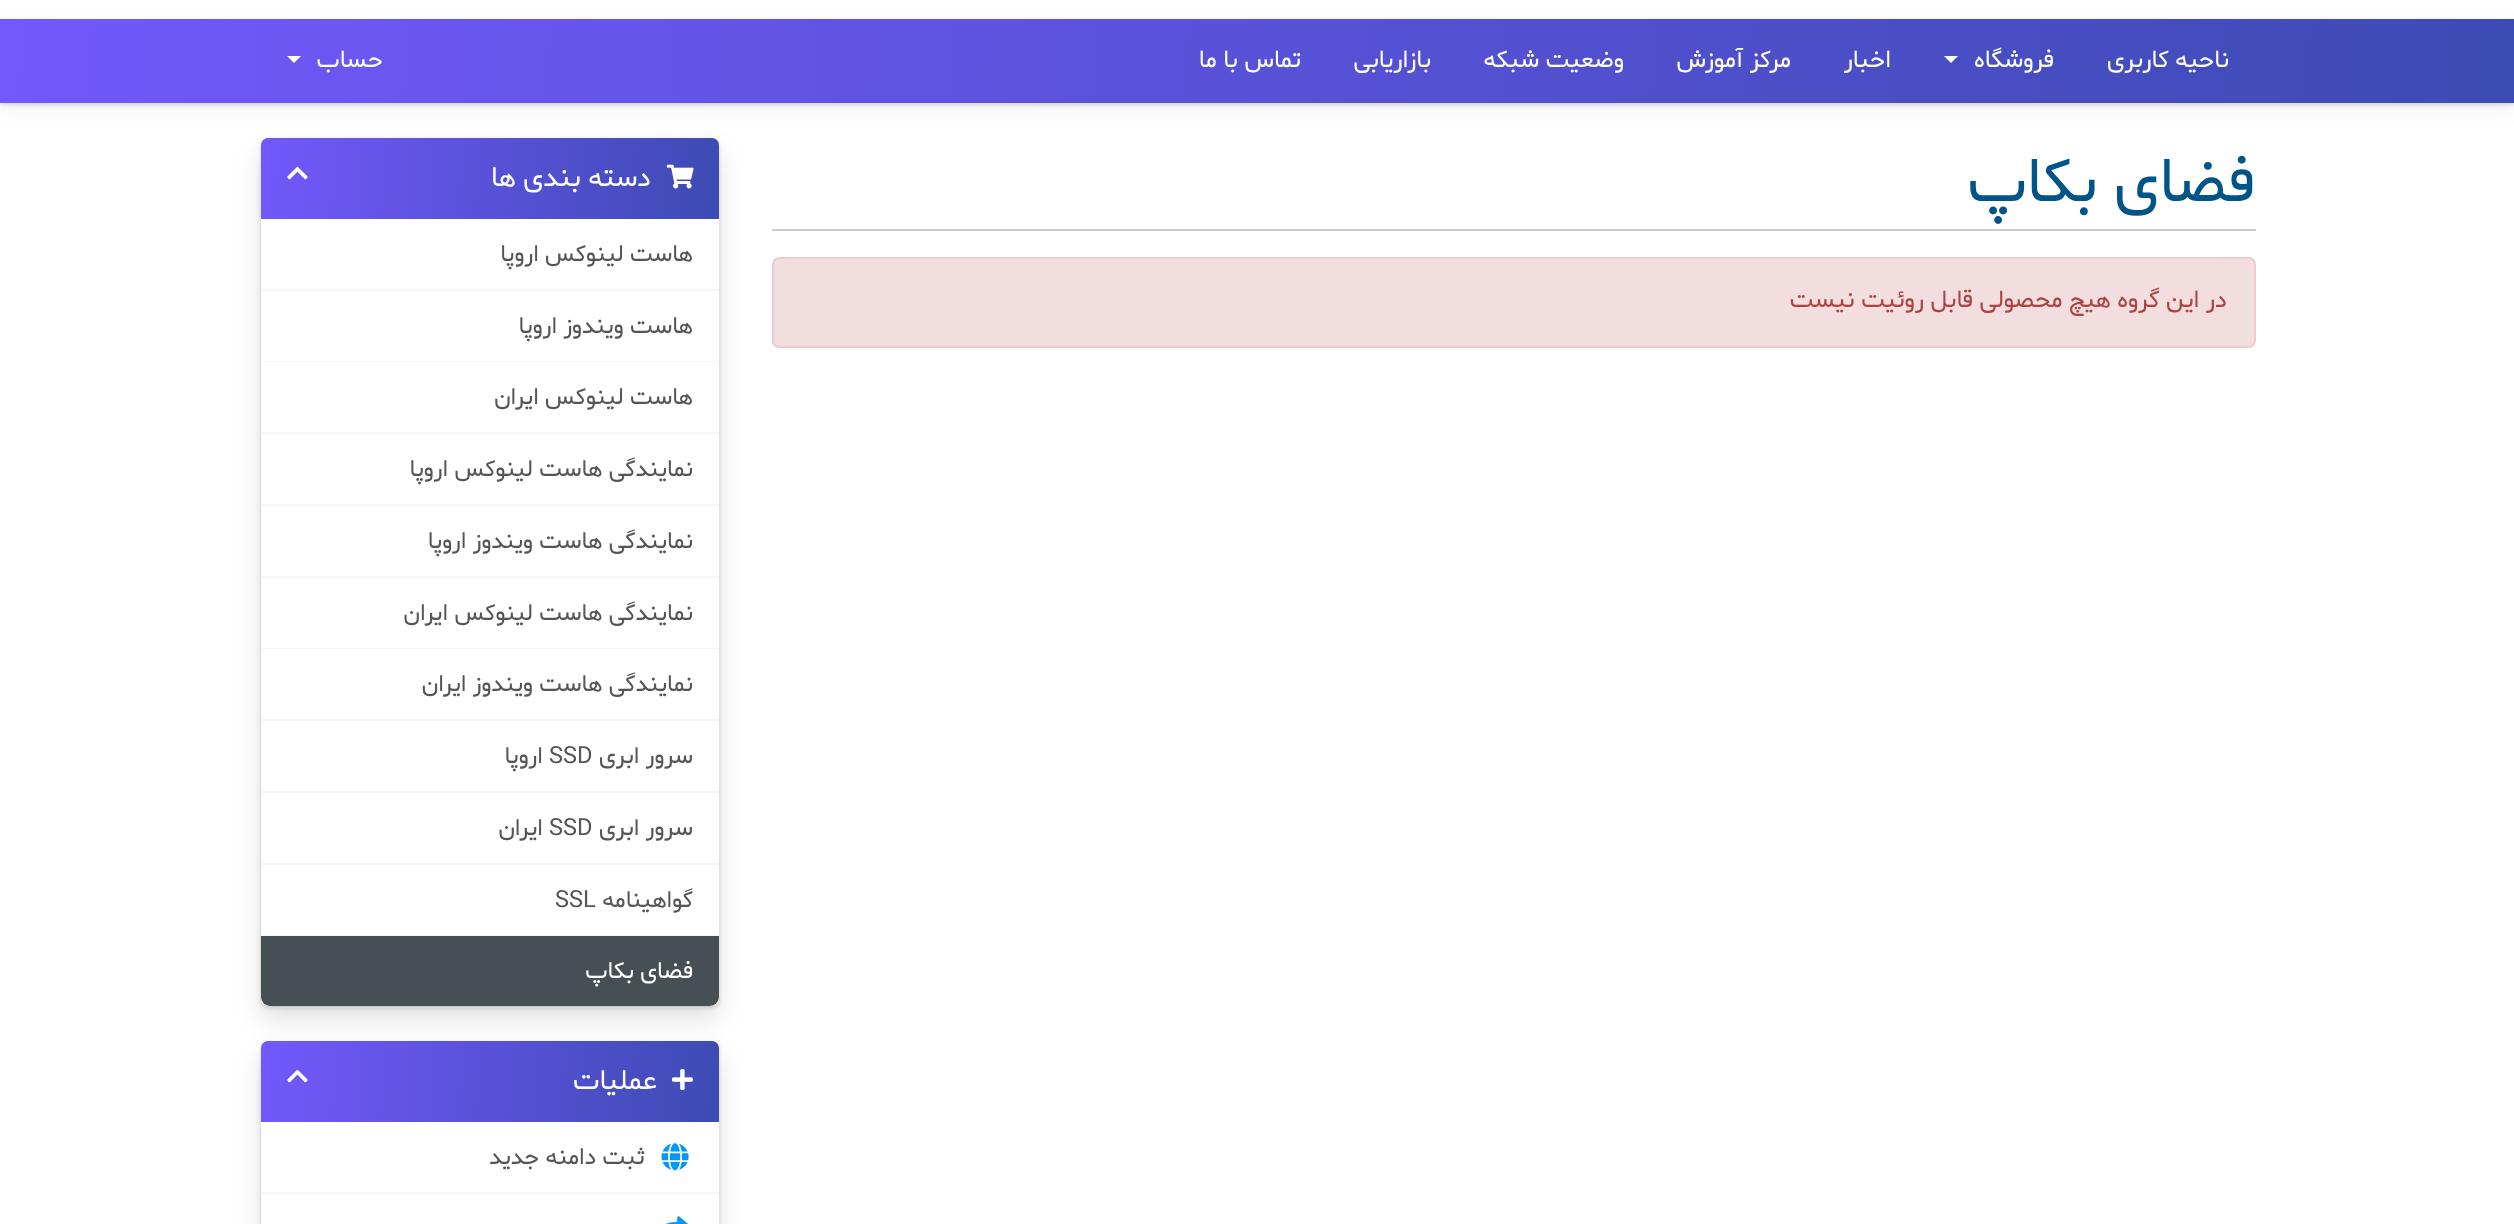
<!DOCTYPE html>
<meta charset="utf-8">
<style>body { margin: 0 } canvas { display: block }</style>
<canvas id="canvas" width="2514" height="1224"></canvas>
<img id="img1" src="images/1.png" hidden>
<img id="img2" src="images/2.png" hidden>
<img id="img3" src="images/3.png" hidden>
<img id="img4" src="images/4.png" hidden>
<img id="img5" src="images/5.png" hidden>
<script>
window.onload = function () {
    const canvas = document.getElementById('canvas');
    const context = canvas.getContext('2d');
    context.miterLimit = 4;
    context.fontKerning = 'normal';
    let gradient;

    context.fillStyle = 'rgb(255, 255, 255)';
    context.fillRect(0, 0, 2514, 1224);
    context.fillStyle = 'rgba(0, 0, 0, 0.05)';
    context.filter = 'blur(10.5px)';
    context.beginPath();
    context.rect(0, 26, 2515, 84);
    context.fill();
    context.filter = 'none';
    context.fillStyle = 'rgba(0, 0, 0, 0.14)';
    context.filter = 'blur(2px)';
    context.beginPath();
    context.rect(0, 21, 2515, 84);
    context.fill();
    context.filter = 'none';
    gradient = context.createLinearGradient(2514, 127, 1.2, -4.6);
    gradient.addColorStop(0, 'rgb(61, 75, 180)');
    gradient.addColorStop(1, 'rgb(115, 88, 251)');
    context.fillStyle = gradient;
    context.fillRect(0, 19, 2514, 84);
    context.fillStyle = 'rgb(255, 255, 255)';
    context.beginPath();
    context.moveTo(1944, 56);
    context.lineTo(1958, 56);
    context.lineTo(1951, 63);
    context.closePath();
    context.fill();
    context.beginPath();
    context.moveTo(287, 56);
    context.lineTo(301, 56);
    context.lineTo(294, 63);
    context.closePath();
    context.fill();
    context.fillStyle = 'rgb(204, 204, 204)';
    context.fillRect(772, 229, 1484, 2);
    context.fillStyle = 'rgb(242, 222, 222)';
    context.beginPath();
    context.roundRect(773, 258, 1482, 89, 6);
    context.fill();
    context.strokeStyle = 'rgb(235, 204, 209)';
    context.lineWidth = 2;
    context.stroke();
    context.fillStyle = 'rgba(0, 0, 0, 0.12)';
    context.filter = 'blur(13px)';
    context.beginPath();
    context.roundRect(261, 151, 458, 868, 7);
    context.fill();
    context.filter = 'none';
    context.fillStyle = 'rgba(0, 0, 0, 0.14)';
    context.filter = 'blur(2px)';
    context.beginPath();
    context.roundRect(261, 140, 458, 868, 7);
    context.fill();
    context.filter = 'none';
    context.fillStyle = 'rgb(255, 255, 255)';
    context.beginPath();
    context.roundRect(261, 138, 458, 868, 7);
    context.fill();
    gradient = context.createLinearGradient(721, 191, 259, 166);
    gradient.addColorStop(0, 'rgb(61, 75, 180)');
    gradient.addColorStop(1, 'rgb(115, 88, 251)');
    context.fillStyle = gradient;
    context.beginPath();
    context.roundRect(261, 138, 458, 81, [7, 7, 0, 0]);
    context.fill();
    context.drawImage(document.getElementById('img1'), 666, 164, 28, 25);
    context.drawImage(document.getElementById('img2'), 287, 166, 21, 14);
    context.fillStyle = 'rgb(245, 245, 245)';
    context.fillRect(261, 289, 458, 2);
    context.fillRect(261, 361, 458, 1);
    context.fillRect(261, 432, 458, 2);
    context.fillRect(261, 504, 458, 2);
    context.fillRect(261, 576, 458, 2);
    context.fillRect(261, 648, 458, 1);
    context.fillRect(261, 719, 458, 2);
    context.fillRect(261, 791, 458, 2);
    context.fillRect(261, 863, 458, 2);
    context.fillRect(261, 935, 458, 1);
    context.fillStyle = 'rgb(70, 80, 84)';
    context.beginPath();
    context.roundRect(261, 936, 458, 70, [0, 0, 9, 9]);
    context.fill();
    context.fillStyle = 'rgba(0, 0, 0, 0.12)';
    context.filter = 'blur(13px)';
    context.beginPath();
    context.roundRect(261, 1054, 458, 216, 7);
    context.fill();
    context.filter = 'none';
    context.fillStyle = 'rgba(0, 0, 0, 0.14)';
    context.filter = 'blur(2px)';
    context.beginPath();
    context.roundRect(261, 1043, 458, 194, 7);
    context.fill();
    context.filter = 'none';
    context.fillStyle = 'rgb(255, 255, 255)';
    context.beginPath();
    context.roundRect(261, 1041, 458, 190, 7);
    context.fill();
    gradient = context.createLinearGradient(721, 1094, 259, 1069);
    gradient.addColorStop(0, 'rgb(61, 75, 180)');
    gradient.addColorStop(1, 'rgb(115, 88, 251)');
    context.fillStyle = gradient;
    context.beginPath();
    context.roundRect(261, 1041, 458, 81, [7, 7, 0, 0]);
    context.fill();
    context.drawImage(document.getElementById('img3'), 672, 1069, 21, 21);
    context.drawImage(document.getElementById('img2'), 287, 1069, 21, 14);
    context.fillStyle = 'rgb(245, 245, 245)';
    context.fillRect(261, 1192, 458, 2);
    context.drawImage(document.getElementById('img4'), 661, 1143, 28, 28);
    context.drawImage(document.getElementById('img5'), 666, 1216, 22, 8);
    context.direction = 'rtl';
    context.font = '24.5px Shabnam';
    context.fillStyle = 'rgb(255, 255, 255)';
    context.fillText('ناحیه کاربری', 2229, 67);
    context.fillText('فروشگاه', 2054, 67);
    context.fillText('اخبار', 1891, 67);
    context.fillText('مرکز آموزش', 1791, 67);
    context.fillText('وضعیت شبکه', 1624, 67);
    context.fillText('بازاریابی', 1431, 67);
    context.fillText('تماس با ما', 1301, 67);
    context.fillText('حساب', 383, 67);
    context.font = '63px Shabnam';
    context.fillStyle = 'rgb(0, 85, 136)';
    context.fillText('فضای بکاپ', 2255, 201);
    context.font = '24.5px Shabnam';
    context.fillStyle = 'rgb(169, 68, 66)';
    context.fillText('در این گروه هیچ محصولی قابل روئیت نیست', 2227, 307);
    context.font = '28px Shabnam';
    context.fillStyle = 'rgb(255, 255, 255)';
    context.fillText('دسته بندی ها', 651, 186);
    context.font = '23.6px Shabnam';
    context.fillStyle = 'rgb(85, 85, 85)';
    context.fillText('هاست لینوکس اروپا', 693, 261);
    context.fillText('هاست ویندوز اروپا', 693, 333);
    context.fillText('هاست لینوکس ایران', 693, 404);
    context.fillText('نمایندگی هاست لینوکس اروپا', 693, 476);
    context.fillText('نمایندگی هاست ویندوز اروپا', 693, 548);
    context.fillText('نمایندگی هاست لینوکس ایران', 693, 620);
    context.fillText('نمایندگی هاست ویندوز ایران', 693, 691);
    context.fillText('سرور ابری', 693, 763);
    context.direction = 'ltr';
    context.fillText('SSD', 549, 763);
    context.direction = 'rtl';
    context.fillText('اروپا', 543, 763);
    context.fillText('سرور ابری', 693, 835);
    context.direction = 'ltr';
    context.fillText('SSD', 549, 835);
    context.direction = 'rtl';
    context.fillText('ایران', 543, 835);
    context.fillText('گواهینامه', 693, 907);
    context.direction = 'ltr';
    context.fillText('SSL', 555, 907);
    context.direction = 'rtl';
    context.fillStyle = 'rgb(255, 255, 255)';
    context.fillText('فضای بکاپ', 693, 978);
    context.font = '28px Shabnam';
    context.fillText('عملیات', 657, 1089);
    context.font = '23.6px Shabnam';
    context.fillStyle = 'rgb(85, 85, 85)';
    context.fillText('ثبت دامنه جدید', 645, 1164);
};
</script>
